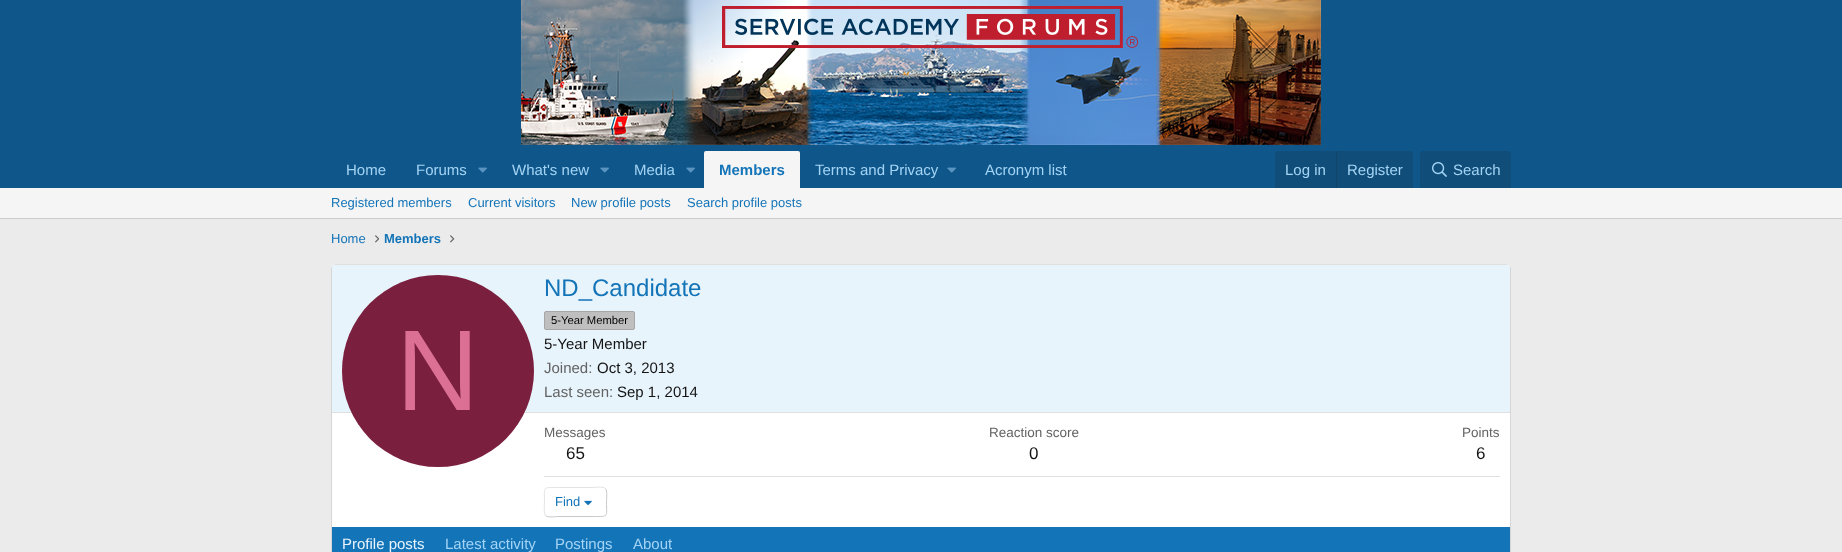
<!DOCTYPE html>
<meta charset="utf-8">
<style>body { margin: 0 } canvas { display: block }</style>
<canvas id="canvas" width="1842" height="552"></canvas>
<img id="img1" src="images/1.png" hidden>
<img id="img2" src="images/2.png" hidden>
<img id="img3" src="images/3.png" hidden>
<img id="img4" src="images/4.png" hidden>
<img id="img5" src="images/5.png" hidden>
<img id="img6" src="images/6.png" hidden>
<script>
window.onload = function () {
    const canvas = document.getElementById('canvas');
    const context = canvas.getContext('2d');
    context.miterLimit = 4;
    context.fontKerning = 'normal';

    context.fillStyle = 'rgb(235, 235, 235)';
    context.fillRect(0, 0, 1842, 552);
    context.fillStyle = 'rgb(15, 87, 138)';
    context.fillRect(0, 0, 1842, 188);
    context.drawImage(document.getElementById('img1'), 521, 0, 800, 145);
    context.drawImage(document.getElementById('img2'), 478, 167, 9, 6);
    context.drawImage(document.getElementById('img2'), 600, 167, 9, 6);
    context.drawImage(document.getElementById('img2'), 686, 167, 9, 6);
    context.fillStyle = 'rgb(245, 245, 245)';
    context.beginPath();
    context.roundRect(704, 151, 96, 37, [2, 2, 0, 0]);
    context.fill();
    context.drawImage(document.getElementById('img2'), 947, 167, 9, 6);
    context.fillStyle = 'rgb(16, 77, 120)';
    context.beginPath();
    context.roundRect(1275, 151, 138, 37, [4, 4, 0, 0]);
    context.fill();
    context.fillStyle = 'rgb(17, 68, 105)';
    context.fillRect(1336, 151, 1, 37);
    context.fillStyle = 'rgb(16, 77, 120)';
    context.beginPath();
    context.roundRect(1420, 151, 91, 37, [4, 4, 0, 0]);
    context.fill();
    context.drawImage(document.getElementById('img3'), 1432, 162, 15, 15);
    context.fillStyle = 'rgb(245, 245, 245)';
    context.fillRect(0, 188, 1842, 30);
    context.fillStyle = 'rgb(204, 204, 204)';
    context.fillRect(0, 218, 1842, 1);
    context.drawImage(document.getElementById('img4'), 375, 235, 4, 8);
    context.drawImage(document.getElementById('img5'), 450, 235, 5, 8);
    context.fillStyle = 'rgb(255, 255, 255)';
    context.beginPath();
    context.roundRect(331, 264, 1180, 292, 4);
    context.fill();
    context.beginPath();
    context.moveTo(332.5, 265.5);
    context.lineTo(335, 264.5);
    context.lineTo(1507, 264.5);
    context.lineTo(1509.5, 265.5);
    context.strokeStyle = 'rgb(224, 224, 224)';
    context.stroke();
    context.beginPath();
    context.moveTo(1509.5, 265.5);
    context.lineTo(1510.5, 268);
    context.lineTo(1510.5, 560);
    context.lineTo(1509.5, 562.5);
    context.strokeStyle = 'rgb(214, 214, 214)';
    context.stroke();
    context.beginPath();
    context.moveTo(332.5, 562.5);
    context.lineTo(331.5, 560);
    context.lineTo(331.5, 268);
    context.lineTo(332.5, 265.5);
    context.stroke();
    context.fillStyle = 'rgb(232, 244, 252)';
    context.beginPath();
    context.roundRect(332, 265, 1178, 148, [3, 3, 0, 0]);
    context.fill();
    context.fillStyle = 'rgb(224, 224, 224)';
    context.fillRect(332, 412, 1178, 1);
    context.fillStyle = 'rgb(122, 31, 61)';
    context.beginPath();
    context.arc(438, 371, 96, 0, 2 * Math.PI);
    context.fill();
    context.fillStyle = 'rgb(191, 191, 191)';
    context.beginPath();
    context.roundRect(544.5, 311.5, 90, 18, 1.5);
    context.fill();
    context.strokeStyle = 'rgb(166, 166, 166)';
    context.stroke();
    context.fillStyle = 'rgb(224, 224, 224)';
    context.fillRect(544, 476, 956, 1);
    context.beginPath();
    context.moveTo(605.5, 488.5);
    context.bezierCurveTo(607.5, 490.5, 606.5, 499, 606.5, 502);
    context.bezierCurveTo(606.5, 517.5, 609, 516.5, 594, 516.5);
    context.lineTo(557, 516.5);
    context.bezierCurveTo(556.5, 516.5, 548, 518, 545.5, 515.5);
    context.strokeStyle = 'rgb(201, 201, 201)';
    context.stroke();
    context.beginPath();
    context.moveTo(545.5, 515.5);
    context.bezierCurveTo(543.5, 513.5, 544.5, 505, 544.5, 502);
    context.bezierCurveTo(544.5, 486.5, 542, 487.5, 557, 487.5);
    context.lineTo(594, 487.5);
    context.bezierCurveTo(594.5, 487.5, 603, 486, 605.5, 488.5);
    context.strokeStyle = 'rgb(227, 227, 227)';
    context.stroke();
    context.drawImage(document.getElementById('img6'), 584, 500, 8, 6);
    context.fillStyle = 'rgb(20, 116, 184)';
    context.fillRect(332, 527, 1178, 25);
    context.font = '15px Liberation Sans';
    context.fillStyle = 'rgb(163, 212, 245)';
    context.fillText('Home', 346, 175);
    context.fillText('Forums', 416, 175);
    context.fillText('What\'s new', 512, 175);
    context.fillText('Media', 634, 175);
    context.font = 'bold 15px Liberation Sans';
    context.fillStyle = 'rgb(20, 116, 184)';
    context.fillText('Members', 719, 175);
    context.font = '15px Liberation Sans';
    context.fillStyle = 'rgb(163, 212, 245)';
    context.fillText('Terms and Privacy', 815, 175);
    context.fillText('Acronym list', 985, 175);
    context.fillText('Log in', 1285, 175);
    context.fillText('Register', 1347, 175);
    context.fillText('Search', 1453, 175);
    context.font = '13px Liberation Sans';
    context.fillStyle = 'rgb(20, 116, 184)';
    context.fillText('Registered members', 331, 207);
    context.fillText('Current visitors', 468, 207);
    context.fillText('New profile posts', 571, 207);
    context.fillText('Search profile posts', 687, 207);
    context.fillText('Home', 331, 243);
    context.font = 'bold 13px Liberation Sans';
    context.fillText('Members', 384, 243);
    context.font = '115px Liberation Sans';
    context.fillStyle = 'rgb(219, 112, 148)';
    context.fillText('N', 396, 410);
    context.font = '24px Liberation Sans';
    context.fillStyle = 'rgb(20, 116, 184)';
    context.fillText('ND_Candidate', 544, 296);
    context.font = '11.25px Liberation Sans';
    context.fillStyle = 'rgb(0, 0, 0)';
    context.fillText('5-Year Member', 551, 324);
    context.font = '15px Liberation Sans';
    context.fillStyle = 'rgb(20, 20, 20)';
    context.fillText('5-Year Member', 544, 349);
    context.fillStyle = 'rgb(99, 99, 99)';
    context.fillText('Joined:', 544, 373);
    context.fillStyle = 'rgb(20, 20, 20)';
    context.fillText('Oct 3, 2013', 597, 373);
    context.fillStyle = 'rgb(99, 99, 99)';
    context.fillText('Last seen:', 544, 397);
    context.fillStyle = 'rgb(20, 20, 20)';
    context.fillText('Sep 1, 2014', 617, 397);
    context.font = '13.5px Liberation Sans';
    context.fillStyle = 'rgb(99, 99, 99)';
    context.fillText('Messages', 544, 437);
    context.font = '17px Liberation Sans';
    context.fillStyle = 'rgb(20, 20, 20)';
    context.fillText('65', 566, 459);
    context.font = '13.5px Liberation Sans';
    context.fillStyle = 'rgb(99, 99, 99)';
    context.fillText('Reaction score', 989, 437);
    context.font = '17px Liberation Sans';
    context.fillStyle = 'rgb(20, 20, 20)';
    context.fillText('0', 1029, 459);
    context.font = '13.5px Liberation Sans';
    context.fillStyle = 'rgb(99, 99, 99)';
    context.fillText('Points', 1462, 437);
    context.font = '17px Liberation Sans';
    context.fillStyle = 'rgb(20, 20, 20)';
    context.fillText('6', 1476, 459);
    context.font = '13px Liberation Sans';
    context.fillStyle = 'rgb(20, 116, 184)';
    context.fillText('Find', 555, 506);
    context.font = '15px Liberation Sans';
    context.fillStyle = 'rgb(232, 244, 252)';
    context.fillText('Profile posts', 342, 549);
    context.fillStyle = 'rgb(163, 212, 245)';
    context.fillText('Latest activity', 445, 549);
    context.fillText('Postings', 555, 549);
    context.fillText('About', 633, 549);
};
</script>
